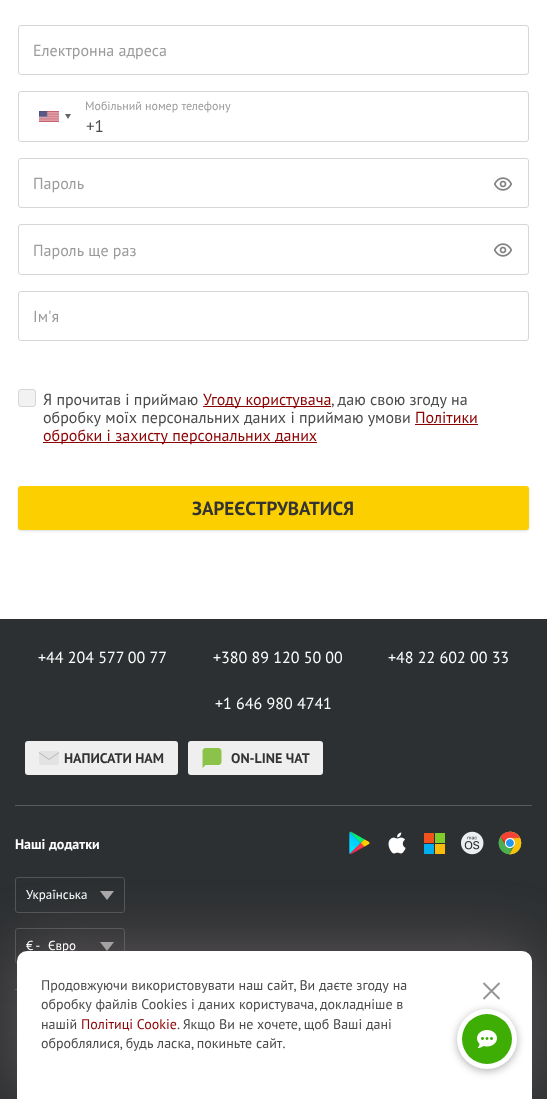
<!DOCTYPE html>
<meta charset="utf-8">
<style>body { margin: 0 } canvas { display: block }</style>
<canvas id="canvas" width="547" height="1099"></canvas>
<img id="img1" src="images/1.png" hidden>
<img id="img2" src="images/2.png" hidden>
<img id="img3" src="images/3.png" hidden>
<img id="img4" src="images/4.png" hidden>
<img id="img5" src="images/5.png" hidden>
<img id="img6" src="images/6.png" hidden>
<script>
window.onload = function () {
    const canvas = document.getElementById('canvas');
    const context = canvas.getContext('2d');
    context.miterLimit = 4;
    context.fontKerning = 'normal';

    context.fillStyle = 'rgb(45, 48, 50)';
    context.fillRect(0, 0, 547, 1099);
    context.fillStyle = 'rgb(255, 255, 255)';
    context.fillRect(0, 0, 547, 619);
    context.beginPath();
    context.roundRect(18.5, 25.5, 510, 49, 2.5);
    context.strokeStyle = 'rgb(214, 214, 214)';
    context.stroke();
    context.beginPath();
    context.roundRect(18.5, 91.5, 510, 50, 2.5);
    context.stroke();
    context.fillStyle = 'rgb(136, 136, 136)';
    context.filter = 'blur(0.5px)';
    context.beginPath();
    context.rect(39, 111, 20, 11);
    context.fill();
    context.filter = 'none';
    context.drawImage(document.getElementById('img1'), 39, 111, 20, 11);
    context.fillStyle = 'rgb(102, 102, 102)';
    context.beginPath();
    context.moveTo(65, 114);
    context.lineTo(71, 114);
    context.lineTo(68, 119);
    context.closePath();
    context.fill();
    context.beginPath();
    context.roundRect(18.5, 158.5, 510, 49, 2.5);
    context.stroke();
    context.drawImage(document.getElementById('img2'), 494, 177, 18, 14);
    context.beginPath();
    context.roundRect(18.5, 224.5, 510, 50, 2.5);
    context.stroke();
    context.drawImage(document.getElementById('img2'), 494, 243, 18, 14);
    context.beginPath();
    context.roundRect(18.5, 291.5, 510, 49, 2.5);
    context.stroke();
    context.fillStyle = 'rgb(242, 242, 242)';
    context.beginPath();
    context.roundRect(18.5, 389.5, 17, 17, 2.5);
    context.fill();
    context.stroke();
    context.fillStyle = 'rgb(140, 3, 3)';
    context.fillRect(203, 406, 128, 1);
    context.fillRect(415, 424, 63, 1);
    context.fillRect(43, 442, 274, 1);
    context.fillStyle = 'rgba(0, 0, 0, 0.14)';
    context.filter = 'blur(1px)';
    context.beginPath();
    context.roundRect(18, 487, 511, 44, 3);
    context.fill();
    context.filter = 'none';
    context.fillStyle = 'rgb(252, 208, 0)';
    context.beginPath();
    context.roundRect(18, 486, 511, 44, 3);
    context.fill();
    context.fillStyle = 'rgb(87, 89, 91)';
    context.fillRect(15, 805, 517, 1);
    context.fillStyle = 'rgb(239, 239, 239)';
    context.beginPath();
    context.roundRect(25, 741, 153, 34, 3);
    context.fill();
    context.drawImage(document.getElementById('img3'), 39, 751, 20, 14);
    context.beginPath();
    context.roundRect(188, 741, 135, 34, 3);
    context.fill();
    context.drawImage(document.getElementById('img4'), 202, 748, 20, 20);
    context.fillStyle = 'rgb(87, 89, 91)';
    context.fillRect(15, 989, 2, 1);
    context.drawImage(document.getElementById('img5'), 349, 831, 173, 24);
    context.beginPath();
    context.roundRect(15.5, 877.5, 109, 35, 2.5);
    context.strokeStyle = 'rgb(82, 84, 85)';
    context.stroke();
    context.fillStyle = 'rgb(169, 169, 169)';
    context.beginPath();
    context.moveTo(107, 900);
    context.lineTo(114, 891);
    context.lineTo(100, 891);
    context.closePath();
    context.fill('evenodd');
    context.beginPath();
    context.roundRect(15.5, 928.5, 109, 35, 2.5);
    context.stroke();
    context.beginPath();
    context.moveTo(107, 951);
    context.lineTo(114, 942);
    context.lineTo(100, 942);
    context.closePath();
    context.fill('evenodd');
    context.fillStyle = 'rgba(154, 132, 134, 0.43)';
    context.filter = 'blur(30px)';
    context.beginPath();
    context.roundRect(17, 947, 515, 148, 10);
    context.fill();
    context.filter = 'none';
    context.fillStyle = 'rgb(255, 255, 255)';
    context.beginPath();
    context.roundRect(17, 951, 515, 148, [10, 10, 0, 0]);
    context.fill();
    context.beginPath();
    context.moveTo(483.5, 983);
    context.lineTo(491.5, 991);
    context.moveTo(499.5, 999);
    context.lineTo(491.5, 991);
    context.moveTo(491.5, 991);
    context.lineTo(499.5, 983);
    context.lineTo(483.5, 999);
    context.strokeStyle = 'rgb(149, 149, 149)';
    context.lineWidth = 2;
    context.stroke();
    context.fillStyle = 'rgba(0, 0, 0, 0.3)';
    context.filter = 'blur(4px)';
    context.beginPath();
    context.roundRect(457, 1011, 60, 60, 30);
    context.fill();
    context.filter = 'none';
    context.fillStyle = 'rgb(255, 255, 255)';
    context.beginPath();
    context.arc(487, 1039, 30, 0, 2 * Math.PI);
    context.fill();
    context.fillStyle = 'rgb(63, 174, 4)';
    context.beginPath();
    context.arc(487, 1039, 25, 0, 2 * Math.PI);
    context.fill();
    context.drawImage(document.getElementById('img6'), 477, 1030, 20, 18);
    context.font = '16px PT Sans';
    context.fillStyle = 'rgb(155, 155, 155)';
    context.fillText('Електронна адреса', 33, 56);
    context.font = '12px PT Sans';
    context.fillText('Мобільний номер телефону', 85, 110);
    context.font = '17px PT Sans';
    context.fillStyle = 'rgb(74, 74, 74)';
    context.fillText('+1', 86, 132);
    context.font = '16px PT Sans';
    context.fillStyle = 'rgb(155, 155, 155)';
    context.fillText('Пароль', 33, 189);
    context.fillText('Пароль ще раз', 33, 256);
    context.fillText('Ім\'я', 33, 322);
    context.fillStyle = 'rgb(74, 74, 74)';
    context.fillText('Я прочитав і приймаю', 43, 405);
    context.fillStyle = 'rgb(140, 3, 3)';
    context.fillText('Угоду користувача', 203, 405);
    context.fillStyle = 'rgb(74, 74, 74)';
    context.fillText(', даю свою згоду на', 331, 405);
    context.fillText('обробку моїх персональних даних і приймаю умови', 43, 423);
    context.fillStyle = 'rgb(140, 3, 3)';
    context.fillText('Політики', 415, 423);
    context.fillText('обробки і захисту персональних даних', 43, 441);
    context.font = 'bold 19px PT Sans';
    context.fillStyle = 'rgb(51, 51, 51)';
    context.fillText('ЗАРЕЄСТРУВАТИСЯ', 192, 515);
    context.font = '16px PT Sans';
    context.fillStyle = 'rgb(255, 255, 255)';
    context.fillText('+44 204 577 00 77', 38, 663);
    context.fillText('+380 89 120 50 00', 213, 663);
    context.fillText('+48 22 602 00 33', 388, 663);
    context.fillText('+1 646 980 4741', 215, 709);
    context.font = 'bold 14px PT Sans';
    context.fillStyle = 'rgb(51, 51, 51)';
    context.fillText('НАПИСАТИ НАМ', 64, 763);
    context.fillText('ON-LINE ЧАТ', 231, 763);
    context.fillStyle = 'rgb(255, 255, 255)';
    context.fillText('Наші додатки', 15, 849);
    context.font = '13px PT Sans';
    context.fillText('Українська', 26, 899);
    context.fillText('€ -', 26, 950);
    context.fillText('Євро', 48, 950);
    context.font = '14px PT Sans';
    context.fillStyle = 'rgb(74, 74, 74)';
    context.fillText('Продовжуючи використовувати наш сайт, Ви даєте згоду на', 41, 990);
    context.fillText('обробку файлів Cookies і даних користувача, докладніше в', 41, 1009);
    context.fillText('нашій', 41, 1029);
    context.fillStyle = 'rgb(140, 3, 3)';
    context.fillText('Політиці Cookie', 81, 1029);
    context.fillStyle = 'rgb(74, 74, 74)';
    context.fillText('. Якщо Ви не хочете, щоб Ваші дані', 177, 1029);
    context.fillText('оброблялися, будь ласка, покиньте сайт.', 41, 1048);
};
</script>
